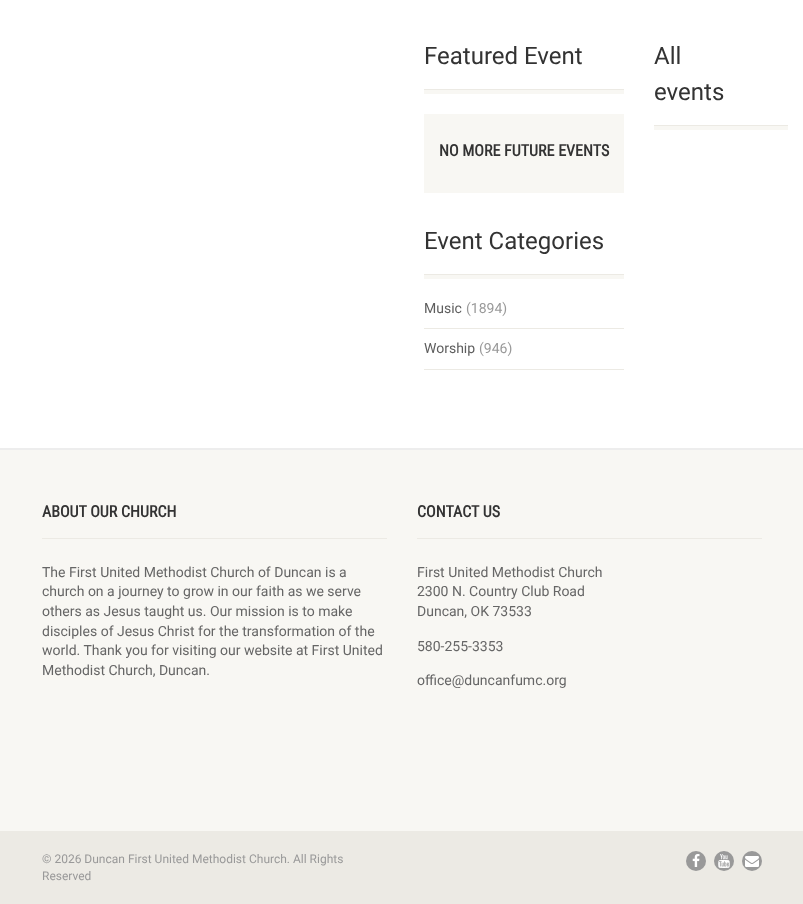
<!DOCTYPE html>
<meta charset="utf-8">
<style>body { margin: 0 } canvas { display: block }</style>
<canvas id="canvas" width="803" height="904"></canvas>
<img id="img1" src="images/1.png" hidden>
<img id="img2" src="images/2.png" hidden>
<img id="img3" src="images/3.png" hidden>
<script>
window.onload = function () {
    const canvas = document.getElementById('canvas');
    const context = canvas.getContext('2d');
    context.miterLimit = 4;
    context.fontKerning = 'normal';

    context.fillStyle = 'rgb(255, 255, 255)';
    context.fillRect(0, 0, 803, 904);
    context.fillStyle = 'rgb(248, 247, 243)';
    context.fillRect(424, 90, 200, 4);
    context.fillStyle = 'rgb(236, 234, 228)';
    context.fillRect(424, 89, 200, 1);
    context.fillStyle = 'rgb(248, 247, 243)';
    context.fillRect(424, 114, 200, 79);
    context.fillRect(424, 275, 200, 4);
    context.fillStyle = 'rgb(236, 234, 228)';
    context.fillRect(424, 274, 200, 1);
    context.fillRect(424, 328, 200, 1);
    context.fillRect(424, 369, 200, 1);
    context.fillRect(654, 125, 134, 1);
    context.fillStyle = 'rgb(248, 247, 243)';
    context.fillRect(654, 126, 134, 4);
    context.fillStyle = 'rgb(237, 237, 237)';
    context.fillRect(0, 448, 803, 2);
    context.fillStyle = 'rgb(248, 247, 243)';
    context.fillRect(0, 450, 803, 381);
    context.fillStyle = 'rgb(236, 234, 228)';
    context.fillRect(42, 538, 345, 1);
    context.fillRect(417, 538, 345, 1);
    context.fillRect(0, 831, 803, 73);
    context.fillStyle = 'rgb(153, 153, 153)';
    context.beginPath();
    context.arc(696, 861, 10, 0, 2 * Math.PI);
    context.fill();
    context.drawImage(document.getElementById('img1'), 692, 854, 8, 13);
    context.beginPath();
    context.arc(724, 861, 10, 0, 2 * Math.PI);
    context.fill();
    context.drawImage(document.getElementById('img2'), 718, 854, 12, 14);
    context.beginPath();
    context.arc(752, 861, 10, 0, 2 * Math.PI);
    context.fill();
    context.drawImage(document.getElementById('img3'), 745, 856, 14, 11);
    context.font = '24px Roboto';
    context.fillStyle = 'rgb(51, 51, 51)';
    context.fillText('Featured Event', 424, 64);
    context.font = 'bold 16px Roboto Condensed';
    context.fillText('NO MORE FUTURE EVENTS', 439, 156);
    context.font = '24px Roboto';
    context.fillText('Event Categories', 424, 249);
    context.font = '14px Roboto';
    context.fillStyle = 'rgb(94, 94, 94)';
    context.fillText('Music', 424, 313);
    context.fillStyle = 'rgb(153, 153, 153)';
    context.fillText('(1894)', 466, 313);
    context.fillStyle = 'rgb(94, 94, 94)';
    context.fillText('Worship', 424, 353);
    context.fillStyle = 'rgb(153, 153, 153)';
    context.fillText('(946)', 479, 353);
    context.font = '24px Roboto';
    context.fillStyle = 'rgb(51, 51, 51)';
    context.fillText('All', 654, 64);
    context.fillText('events', 654, 100);
    context.font = 'bold 16px Roboto Condensed';
    context.fillText('ABOUT OUR CHURCH', 42, 517);
    context.font = '14px Roboto';
    context.fillStyle = 'rgb(102, 102, 102)';
    context.fillText('The First United Methodist Church of Duncan is a', 42, 577);
    context.fillText('church on a journey to grow in our faith as we serve', 42, 596);
    context.fillText('others as Jesus taught us. Our mission is to make', 42, 616);
    context.fillText('disciples of Jesus Christ for the transformation of the', 42, 636);
    context.fillText('world. Thank you for visiting our website at First United', 42, 655);
    context.fillText('Methodist Church, Duncan.', 42, 675);
    context.font = 'bold 16px Roboto Condensed';
    context.fillStyle = 'rgb(51, 51, 51)';
    context.fillText('CONTACT US', 417, 517);
    context.font = '14px Roboto';
    context.fillStyle = 'rgb(102, 102, 102)';
    context.fillText('First United Methodist Church', 417, 577);
    context.fillText('2300 N. Country Club Road', 417, 596);
    context.fillText('Duncan, OK 73533', 417, 616);
    context.fillText('580-255-3353', 417, 651);
    context.fillText('office@duncanfumc.org', 417, 685);
    context.font = '12px Roboto';
    context.fillStyle = 'rgb(153, 153, 153)';
    context.fillText('© 2026 Duncan First United Methodist Church. All Rights', 42, 863);
    context.fillText('Reserved', 42, 880);
};
</script>
